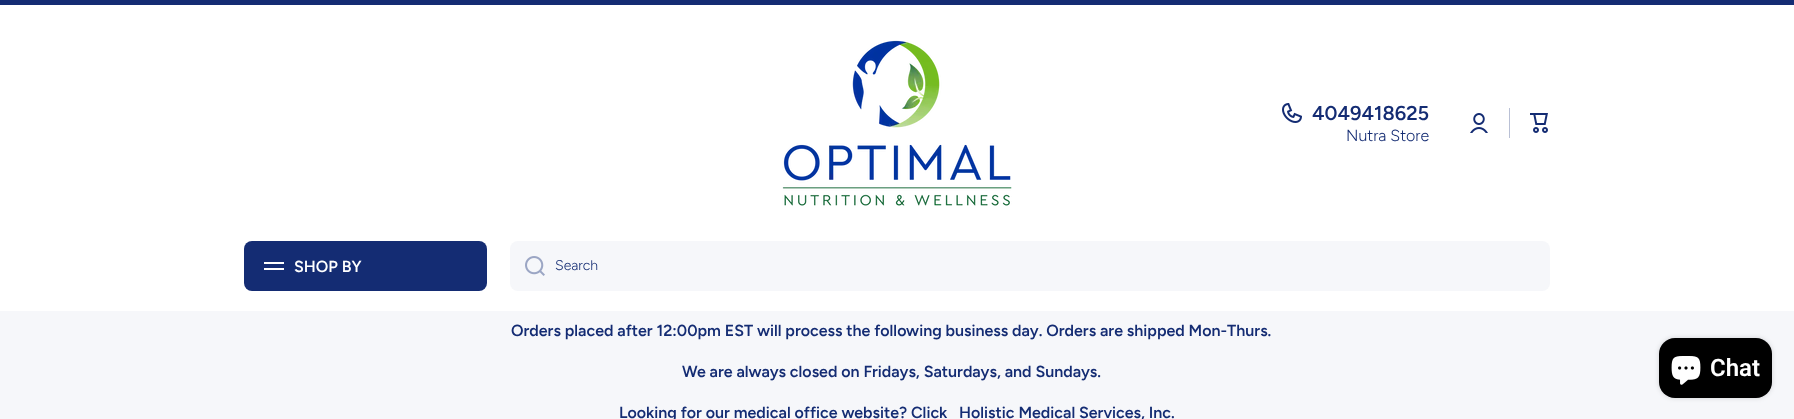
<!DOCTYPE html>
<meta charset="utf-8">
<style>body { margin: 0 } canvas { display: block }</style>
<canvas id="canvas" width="1794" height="419"></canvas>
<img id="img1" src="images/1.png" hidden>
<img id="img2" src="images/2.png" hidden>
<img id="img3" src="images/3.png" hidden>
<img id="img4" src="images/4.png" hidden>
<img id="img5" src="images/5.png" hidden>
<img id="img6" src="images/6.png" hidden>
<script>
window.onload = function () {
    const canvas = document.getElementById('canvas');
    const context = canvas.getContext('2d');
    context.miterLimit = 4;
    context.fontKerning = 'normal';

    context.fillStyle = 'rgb(255, 255, 255)';
    context.fillRect(0, 0, 1794, 419);
    context.fillStyle = 'rgb(20, 44, 115)';
    context.fillRect(0, 0, 1794, 5);
    context.drawImage(document.getElementById('img1'), 782, 40, 230, 166);
    context.drawImage(document.getElementById('img2'), 1282, 103, 20, 20);
    context.drawImage(document.getElementById('img3'), 1470, 113, 18, 20);
    context.fillStyle = 'rgb(185, 192, 213)';
    context.fillRect(1509, 108, 1, 30);
    context.drawImage(document.getElementById('img4'), 1530, 113, 18, 20);
    context.fillStyle = 'rgb(20, 44, 115)';
    context.beginPath();
    context.roundRect(244, 241, 243, 50, 8);
    context.fill();
    context.fillStyle = 'rgb(255, 255, 255)';
    context.fillRect(264, 262, 20, 2);
    context.fillRect(264, 268, 20, 2);
    context.fillStyle = 'rgb(246, 247, 250)';
    context.beginPath();
    context.roundRect(510, 241, 1040, 50, 8);
    context.fill();
    context.drawImage(document.getElementById('img5'), 525, 256, 20, 20);
    context.fillRect(0, 311, 1794, 108);
    context.fillStyle = 'rgba(0, 0, 0, 0.15)';
    context.filter = 'blur(2.5px)';
    context.beginPath();
    context.roundRect(1659, 338, 113, 60, 16);
    context.fill();
    context.filter = 'none';
    context.fillStyle = 'rgb(0, 0, 0)';
    context.beginPath();
    context.roundRect(1659, 338, 113, 60, 16);
    context.fill();
    context.drawImage(document.getElementById('img6'), 1671, 356, 30, 29);
    context.font = '600 20px Figtree';
    context.fillStyle = 'rgb(20, 44, 115)';
    context.fillText('4049418625', 1312, 120);
    context.font = '300 16px Figtree';
    context.fillText('Nutra Store', 1346, 141);
    context.font = '600 16px Figtree';
    context.fillStyle = 'rgb(255, 255, 255)';
    context.fillText('SHOP BY', 294, 272);
    context.font = '300 14px Figtree';
    context.fillStyle = 'rgb(20, 44, 115)';
    context.fillText('Search', 555, 270);
    context.font = '600 16px Figtree';
    context.fillText('Orders placed after 12:00pm EST will process the following business day. Orders are shipped Mon-Thurs.', 511, 336);
    context.fillText('We are always closed on Fridays, Saturdays, and Sundays.', 682, 377);
    context.font = '600 24px Roboto';
    context.fillStyle = 'rgb(255, 255, 255)';
    context.fillText('Chat', 1710, 376);
    context.font = '600 16px Figtree';
    context.fillStyle = 'rgb(20, 44, 115)';
    context.fillText('Looking for our medical office website? Click', 619, 418);
    context.fillText('Holistic Medical Services, Inc.', 959, 418);
};
</script>
